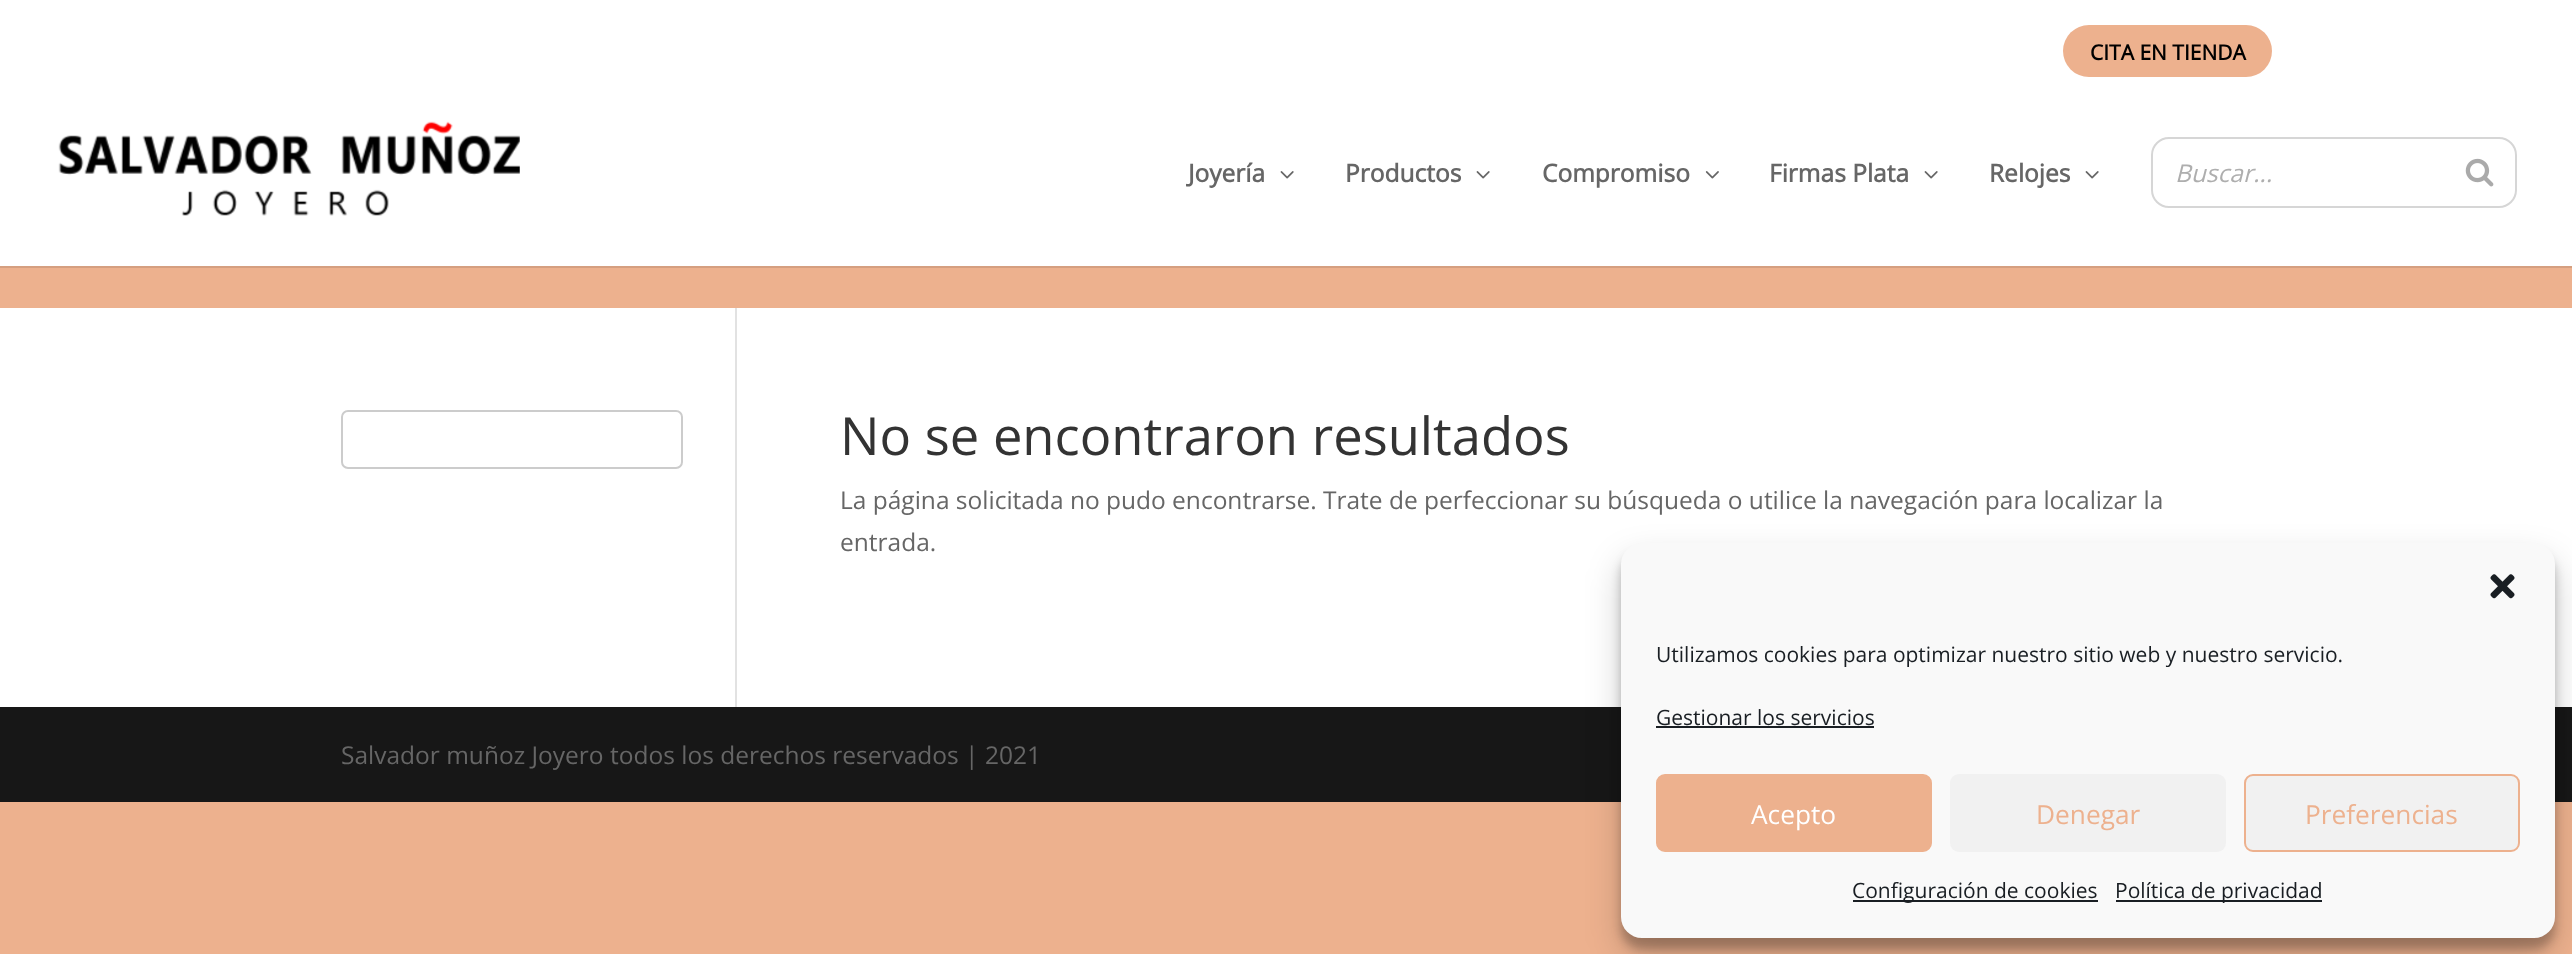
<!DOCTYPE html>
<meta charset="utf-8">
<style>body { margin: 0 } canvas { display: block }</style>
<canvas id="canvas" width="2572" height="954"></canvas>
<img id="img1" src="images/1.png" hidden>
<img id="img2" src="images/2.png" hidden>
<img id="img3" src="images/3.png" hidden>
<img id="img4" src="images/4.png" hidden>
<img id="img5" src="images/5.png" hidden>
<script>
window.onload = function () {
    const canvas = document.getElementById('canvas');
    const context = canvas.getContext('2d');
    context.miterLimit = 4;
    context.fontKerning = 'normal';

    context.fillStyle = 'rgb(237, 177, 142)';
    context.fillRect(0, 0, 2572, 954);
    context.fillStyle = 'rgb(255, 255, 255)';
    context.fillRect(0, 0, 2572, 266);
    context.fillStyle = 'rgb(237, 177, 142)';
    context.beginPath();
    context.roundRect(2063, 25, 209, 52, 26);
    context.fill();
    context.fillStyle = 'rgb(213, 159, 128)';
    context.beginPath();
    context.moveTo(0, 266);
    context.lineTo(0, 268);
    context.lineTo(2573, 268);
    context.lineTo(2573, 81);
    context.lineTo(2572, 81);
    context.lineTo(2572, 266);
    context.closePath();
    context.fill();
    context.drawImage(document.getElementById('img1'), 58, 121, 462, 95);
    context.drawImage(document.getElementById('img2'), 1280, 171, 14, 8);
    context.drawImage(document.getElementById('img2'), 1476, 171, 14, 8);
    context.drawImage(document.getElementById('img3'), 1705, 171, 14, 8);
    context.drawImage(document.getElementById('img2'), 1924, 171, 14, 8);
    context.drawImage(document.getElementById('img2'), 2085, 171, 14, 8);
    context.beginPath();
    context.roundRect(2152, 138, 364, 69, 17);
    context.strokeStyle = 'rgb(214, 214, 214)';
    context.lineWidth = 2;
    context.stroke();
    context.drawImage(document.getElementById('img4'), 2465, 158, 29, 29);
    context.fillStyle = 'rgb(255, 255, 255)';
    context.fillRect(0, 308, 2572, 399);
    context.fillStyle = 'rgb(226, 226, 226)';
    context.fillRect(735, 308, 2, 399);
    context.beginPath();
    context.roundRect(342, 411, 340, 57, 6);
    context.strokeStyle = 'rgb(204, 204, 204)';
    context.stroke();
    context.fillStyle = 'rgb(23, 23, 23)';
    context.fillRect(0, 707, 2572, 95);
    context.fillStyle = 'rgba(0, 0, 0, 0.23)';
    context.filter = 'blur(5px)';
    context.beginPath();
    context.roundRect(1621, 553, 934, 396, 21);
    context.fill();
    context.filter = 'none';
    context.fillStyle = 'rgba(0, 0, 0, 0.19)';
    context.filter = 'blur(17.5px)';
    context.beginPath();
    context.roundRect(1621, 560, 934, 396, 21);
    context.fill();
    context.filter = 'none';
    context.fillStyle = 'rgb(249, 249, 249)';
    context.beginPath();
    context.roundRect(1621, 543, 934, 395, 21);
    context.fill();
    context.drawImage(document.getElementById('img5'), 2490, 574, 25, 25);
    context.fillStyle = 'rgb(25, 30, 35)';
    context.fillRect(1656, 726, 218, 2);
    context.fillStyle = 'rgb(237, 177, 142)';
    context.beginPath();
    context.roundRect(1657, 775, 274, 76, 8);
    context.fill();
    context.strokeStyle = 'rgb(237, 177, 142)';
    context.stroke();
    context.fillStyle = 'rgb(241, 241, 241)';
    context.beginPath();
    context.roundRect(1950, 774, 276, 78, 9);
    context.fill();
    context.beginPath();
    context.roundRect(2245, 775, 274, 76, 8);
    context.fill();
    context.stroke();
    context.fillStyle = 'rgb(25, 30, 35)';
    context.fillRect(1853, 900, 245, 2);
    context.fillRect(2116, 900, 206, 2);
    context.font = 'bold 21px Open Sans';
    context.fillStyle = 'rgb(0, 0, 0)';
    context.fillText('CITA EN TIENDA', 2090, 60);
    context.font = 'bold 24.5px Open Sans';
    context.fillStyle = 'rgb(102, 102, 102)';
    context.fillText('Joyería', 1188, 182);
    context.fillText('Productos', 1345, 182);
    context.fillText('Compromiso', 1542, 182);
    context.fillText('Firmas Plata', 1769, 182);
    context.fillText('Relojes', 1989, 182);
    context.font = 'italic 24.5px Open Sans';
    context.fillStyle = 'rgb(174, 174, 174)';
    context.fillText('Buscar...', 2175, 182);
    context.font = '52.5px Open Sans';
    context.fillStyle = 'rgb(51, 51, 51)';
    context.fillText('No se encontraron resultados', 840, 455);
    context.font = '24.5px Open Sans';
    context.fillStyle = 'rgb(102, 102, 102)';
    context.fillText('La página solicitada no pudo encontrarse. Trate de perfeccionar su búsqueda o utilice la navegación para localizar la', 840, 509);
    context.fillText('entrada.', 840, 551);
    context.fillText('Salvador muñoz Joyero todos los derechos reservados | 2021', 341, 764);
    context.font = '21px Open Sans';
    context.fillStyle = 'rgb(25, 30, 35)';
    context.fillText('Utilizamos cookies para optimizar nuestro sitio web y nuestro servicio.', 1656, 662);
    context.fillText('Gestionar los servicios', 1656, 725);
    context.font = '26.25px Open Sans';
    context.fillStyle = 'rgb(255, 255, 255)';
    context.fillText('Acepto', 1751, 824);
    context.fillStyle = 'rgb(237, 177, 142)';
    context.fillText('Denegar', 2036, 824);
    context.fillText('Preferencias', 2305, 824);
    context.font = '21px Open Sans';
    context.fillStyle = 'rgb(25, 30, 35)';
    context.fillText('Configuración de cookies', 1852, 898);
    context.fillText('Política de privacidad', 2115, 898);
};
</script>
